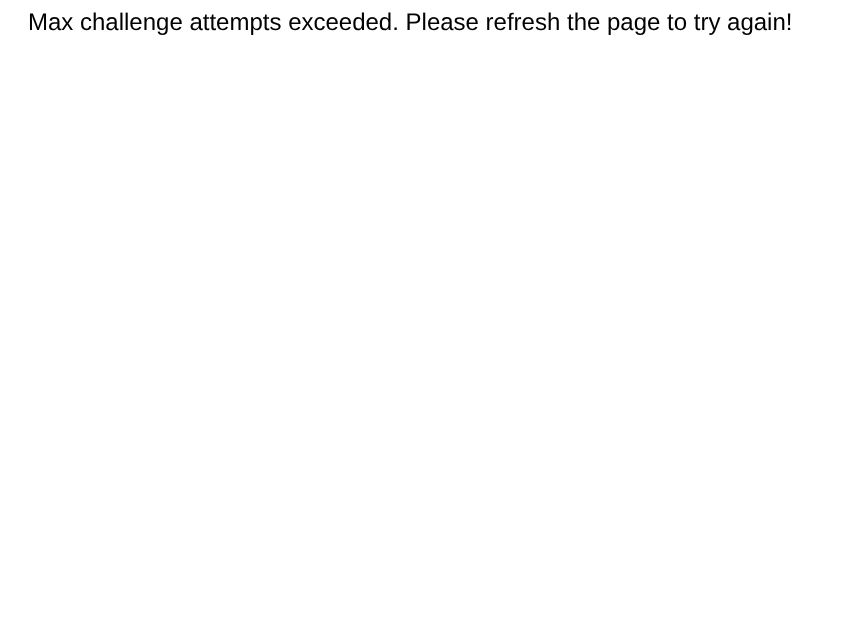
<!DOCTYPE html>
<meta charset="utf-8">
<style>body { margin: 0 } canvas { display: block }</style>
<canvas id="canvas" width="851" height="631"></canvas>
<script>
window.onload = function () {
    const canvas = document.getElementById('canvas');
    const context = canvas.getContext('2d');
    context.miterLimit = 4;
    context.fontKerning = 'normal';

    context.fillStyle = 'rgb(255, 255, 255)';
    context.fillRect(0, 0, 851, 631);
    context.font = '24px Liberation Sans';
    context.fillStyle = 'rgb(0, 0, 0)';
    context.fillText('Max challenge attempts exceeded. Please refresh the page to try again!', 28, 30);
};
</script>
